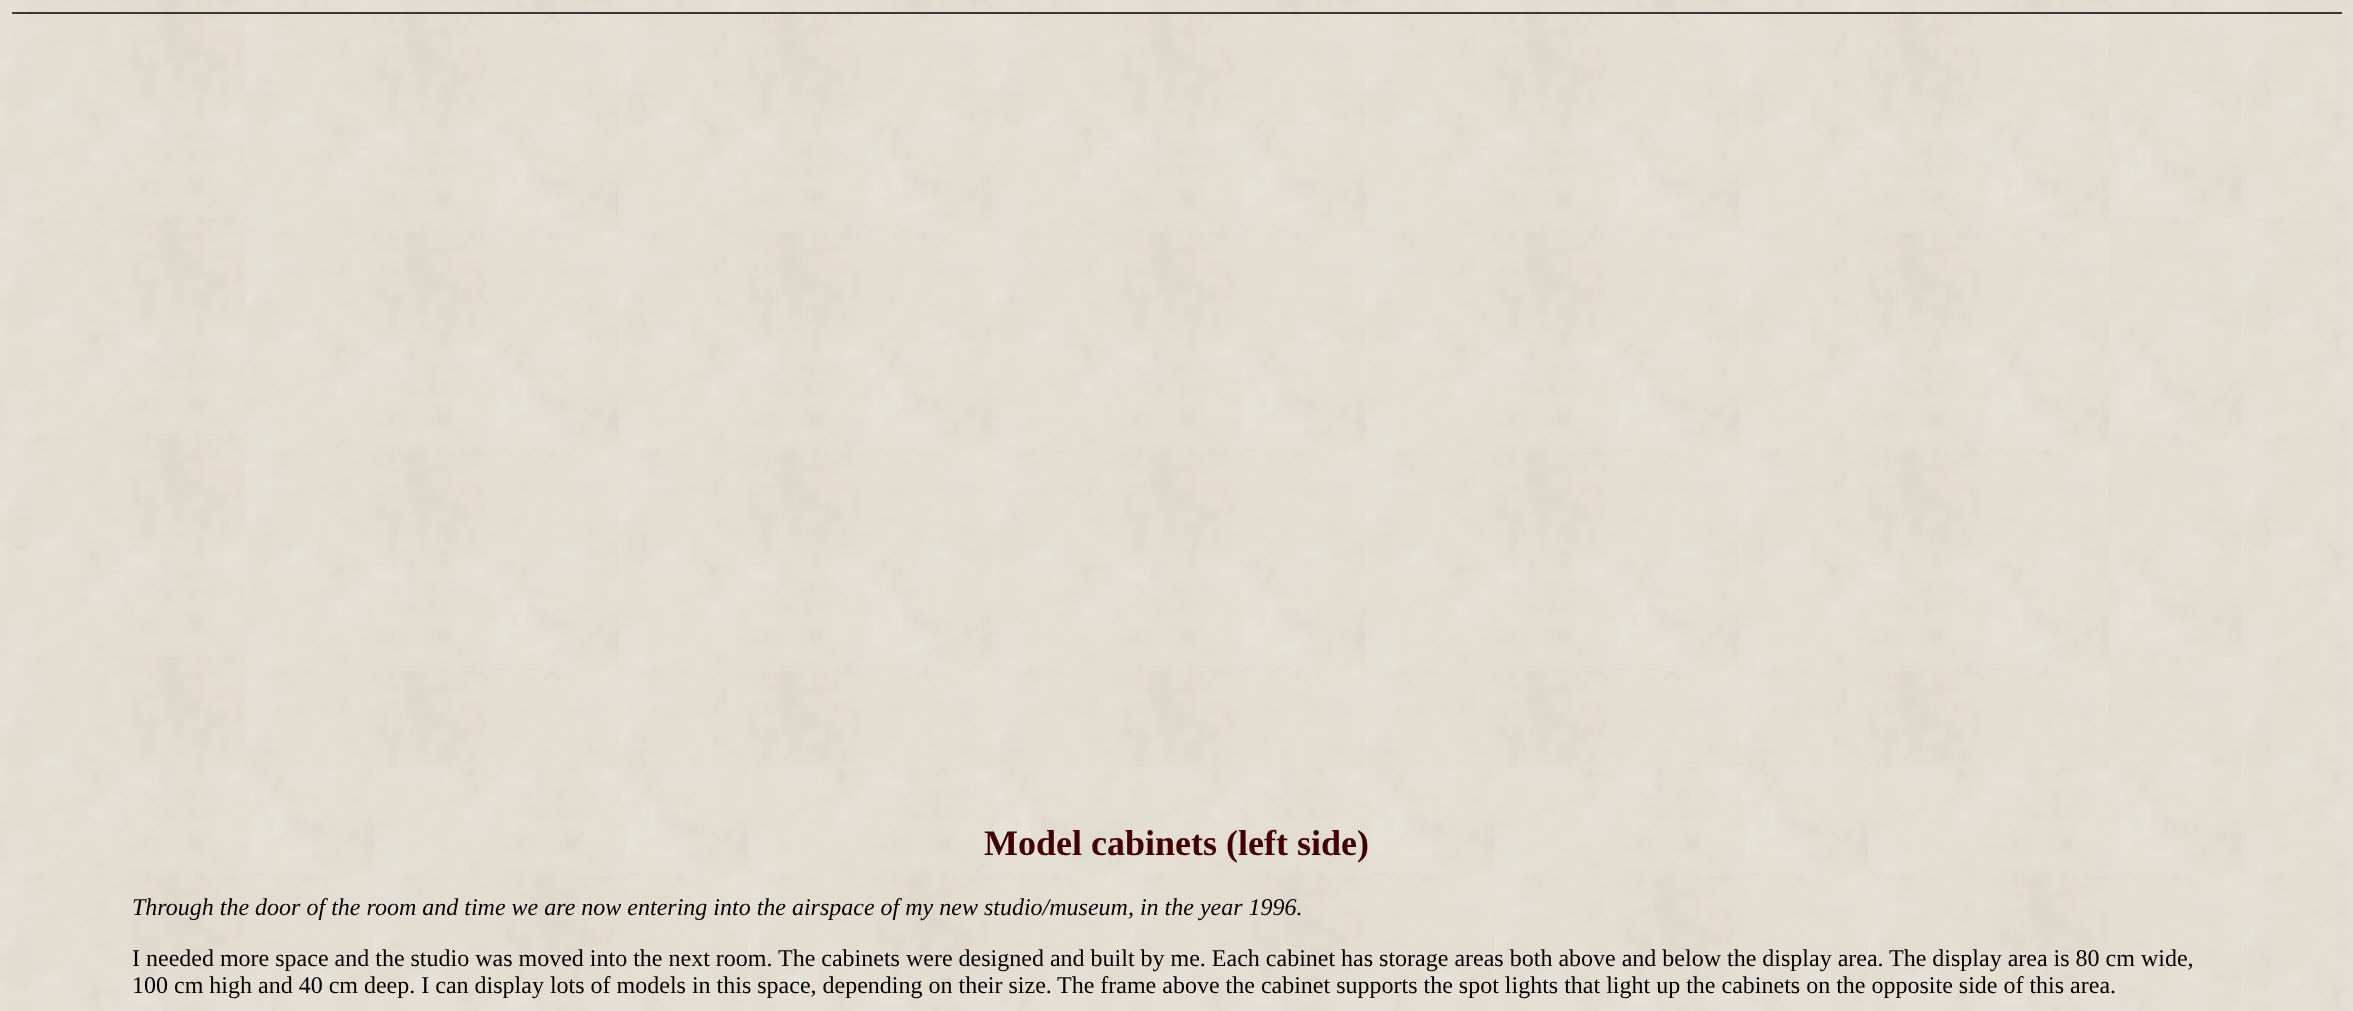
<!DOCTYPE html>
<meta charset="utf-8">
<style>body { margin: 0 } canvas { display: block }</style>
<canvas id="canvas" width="2353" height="1011"></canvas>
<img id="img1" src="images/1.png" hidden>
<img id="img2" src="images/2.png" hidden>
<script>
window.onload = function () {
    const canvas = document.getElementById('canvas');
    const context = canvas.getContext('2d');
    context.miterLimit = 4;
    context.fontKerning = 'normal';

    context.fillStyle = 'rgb(228, 223, 212)';
    context.fillRect(0, 0, 2353, 1011);
    context.drawImage(document.getElementById('img1'), 0, 0, 2345, 1011);
    context.fillStyle = 'rgb(57, 57, 57)';
    context.fillRect(12, 12, 2330, 2);
    context.drawImage(document.getElementById('img2'), 245, 14, 1864, 753);
    context.font = 'bold 36px Liberation Serif';
    context.fillStyle = 'rgb(65, 0, 0)';
    context.fillText('Model cabinets (left side)', 984, 855);
    context.font = 'italic 24px Liberation Serif';
    context.fillStyle = 'rgb(0, 0, 0)';
    context.fillText('Through the door of the room and time we are now entering into the airspace of my new studio/museum, in the year 1996.', 132, 915);
    context.font = '24px Liberation Serif';
    context.fillText('I needed more space and the studio was moved into the next room.', 132, 966);
    context.fillText('The cabinets were designed and built by me. Each cabinet has storage areas both above and below the display area.', 778, 966);
    context.fillText('The display area is 80 cm wide,', 1889, 966);
    context.fillText('100 cm high and 40 cm deep. I can display lots of models in this space, depending on their size.', 132, 993);
    context.fillText('The frame above the cabinet supports the spot lights that light up the cabinets on the opposite side of this area.', 1057, 993);
};
</script>
